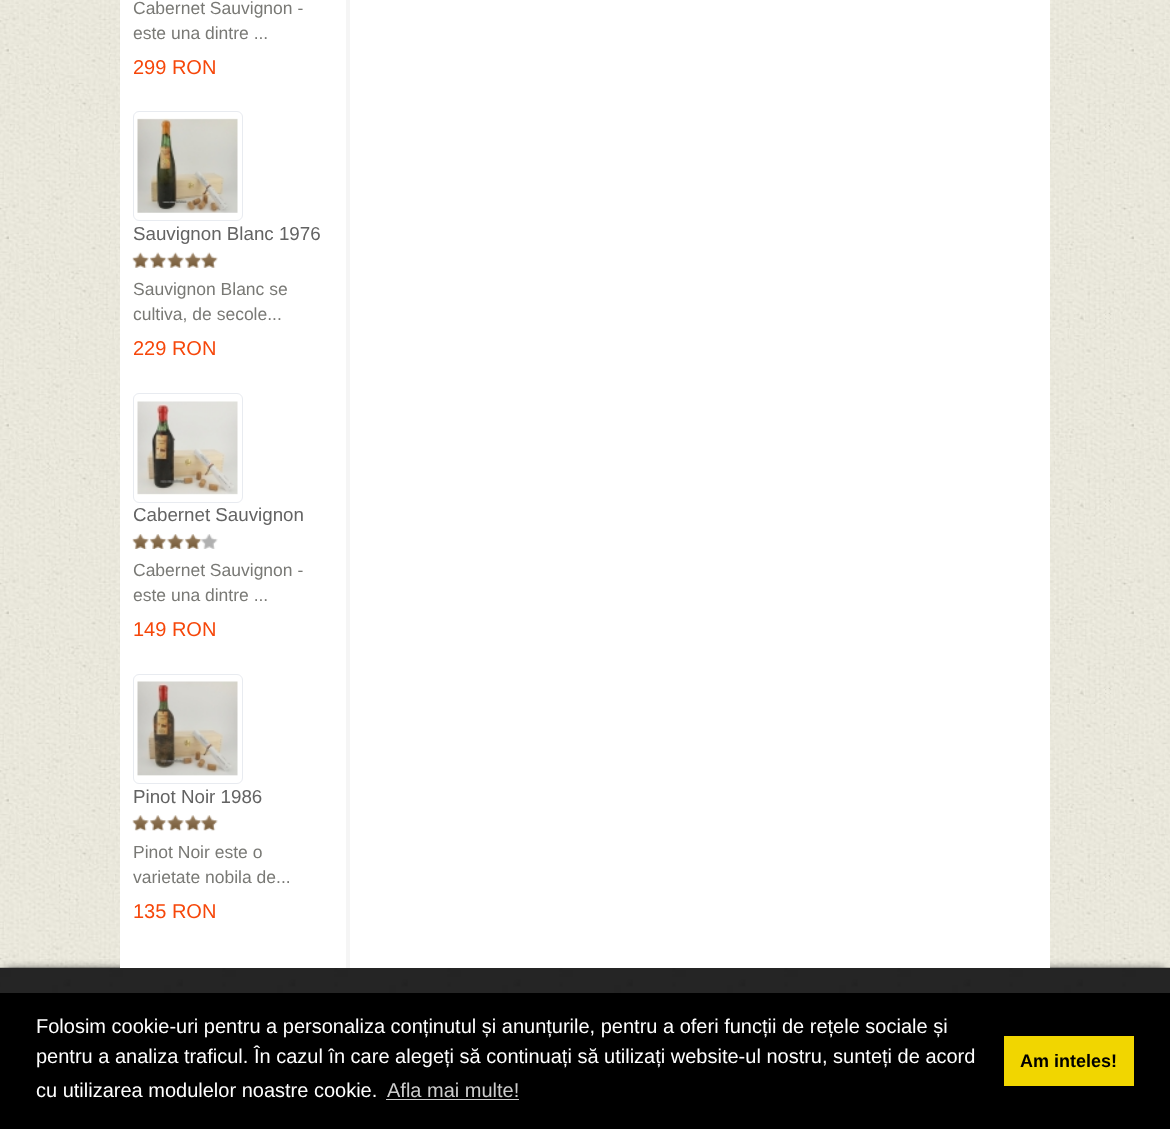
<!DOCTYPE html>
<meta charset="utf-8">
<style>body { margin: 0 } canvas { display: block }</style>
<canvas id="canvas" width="1170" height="1129"></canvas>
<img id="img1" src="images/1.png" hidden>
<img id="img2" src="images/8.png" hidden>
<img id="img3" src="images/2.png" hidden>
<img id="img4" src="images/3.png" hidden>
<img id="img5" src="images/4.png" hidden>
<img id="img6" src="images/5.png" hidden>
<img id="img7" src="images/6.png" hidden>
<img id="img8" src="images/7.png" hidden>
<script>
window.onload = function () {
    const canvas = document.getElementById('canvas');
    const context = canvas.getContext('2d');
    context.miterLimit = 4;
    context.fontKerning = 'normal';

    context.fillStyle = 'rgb(255, 255, 255)';
    context.fillRect(0, 0, 1170, 1129);
    context.drawImage(document.getElementById('img1'), 0, 0, 1170, 968);
    context.fillStyle = 'rgb(68, 68, 68)';
    context.filter = 'blur(4px)';
    context.beginPath();
    context.rect(6, 969, 1158, 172);
    context.fill();
    context.filter = 'none';
    context.drawImage(document.getElementById('img2'), 0, 967, 1170, 26);
    context.fillStyle = 'rgba(179, 144, 100, 0.5)';
    context.filter = 'blur(0.5px)';
    context.beginPath();
    context.rect(120, -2, 930, 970);
    context.fill();
    context.filter = 'none';
    context.fillStyle = 'rgb(255, 255, 255)';
    context.fillRect(120, 0, 930, 968);
    context.beginPath();
    context.roundRect(133.5, 111.5, 109, 109, 5.5);
    context.strokeStyle = 'rgb(232, 235, 240)';
    context.stroke();
    context.drawImage(document.getElementById('img3'), 137, 118, 101, 95);
    context.drawImage(document.getElementById('img4'), 132, 252, 86, 16);
    context.beginPath();
    context.roundRect(133.5, 393.5, 109, 109, 5.5);
    context.stroke();
    context.drawImage(document.getElementById('img5'), 137, 401, 101, 94);
    context.drawImage(document.getElementById('img6'), 132, 534, 86, 15);
    context.beginPath();
    context.roundRect(133.5, 674.5, 109, 109, 5.5);
    context.stroke();
    context.drawImage(document.getElementById('img7'), 137, 681, 101, 95);
    context.drawImage(document.getElementById('img8'), 132, 815, 86, 16);
    context.fillStyle = 'rgb(245, 245, 245)';
    context.fillRect(346, 0, 4, 968);
    context.fillStyle = 'rgb(0, 0, 0)';
    context.fillRect(0, 993, 1170, 136);
    context.fillStyle = 'rgb(204, 204, 204)';
    context.fillRect(386, 1099, 133, 1);
    context.fillStyle = 'rgb(241, 214, 0)';
    context.fillRect(1004, 1036, 130, 50);
    context.font = '17.5px Liberation Sans';
    context.fillStyle = 'rgb(121, 121, 117)';
    context.fillText('Cabernet Sauvignon -', 133, 14);
    context.fillText('este una dintre ...', 133, 39);
    context.font = '20px Liberation Sans';
    context.fillStyle = 'rgb(246, 71, 10)';
    context.fillText('299 RON', 133, 74);
    context.font = '18.75px Liberation Sans';
    context.fillStyle = 'rgb(99, 99, 99)';
    context.fillText('Sauvignon Blanc 1976', 133, 240);
    context.font = '17.5px Liberation Sans';
    context.fillStyle = 'rgb(121, 121, 117)';
    context.fillText('Sauvignon Blanc se', 133, 295);
    context.fillText('cultiva, de secole...', 133, 320);
    context.font = '20px Liberation Sans';
    context.fillStyle = 'rgb(246, 71, 10)';
    context.fillText('229 RON', 133, 355);
    context.font = '18.75px Liberation Sans';
    context.fillStyle = 'rgb(99, 99, 99)';
    context.fillText('Cabernet Sauvignon', 133, 521);
    context.font = '17.5px Liberation Sans';
    context.fillStyle = 'rgb(121, 121, 117)';
    context.fillText('Cabernet Sauvignon -', 133, 576);
    context.fillText('este una dintre ...', 133, 601);
    context.font = '20px Liberation Sans';
    context.fillStyle = 'rgb(246, 71, 10)';
    context.fillText('149 RON', 133, 636);
    context.font = '18.75px Liberation Sans';
    context.fillStyle = 'rgb(99, 99, 99)';
    context.fillText('Pinot Noir 1986', 133, 803);
    context.font = '17.5px Liberation Sans';
    context.fillStyle = 'rgb(121, 121, 117)';
    context.fillText('Pinot Noir este o', 133, 858);
    context.fillText('varietate nobila de...', 133, 883);
    context.font = '20px Liberation Sans';
    context.fillStyle = 'rgb(246, 71, 10)';
    context.fillText('135 RON', 133, 918);
    context.fillStyle = 'rgb(255, 255, 255)';
    context.fillText('Folosim cookie-uri pentru a personaliza conținutul și anunțurile, pentru a oferi funcții de rețele sociale și', 36, 1033);
    context.fillText('pentru a analiza traficul. În cazul în care alegeți să continuați să utilizați website-ul nostru, sunteți de acord', 36, 1063);
    context.fillText('cu utilizarea modulelor noastre cookie.', 36, 1097);
    context.fillStyle = 'rgb(204, 204, 204)';
    context.fillText('Afla mai multe!', 387, 1097);
    context.font = 'bold 18px Liberation Sans';
    context.fillStyle = 'rgb(0, 0, 0)';
    context.fillText('Am inteles!', 1020, 1067);
};
</script>
